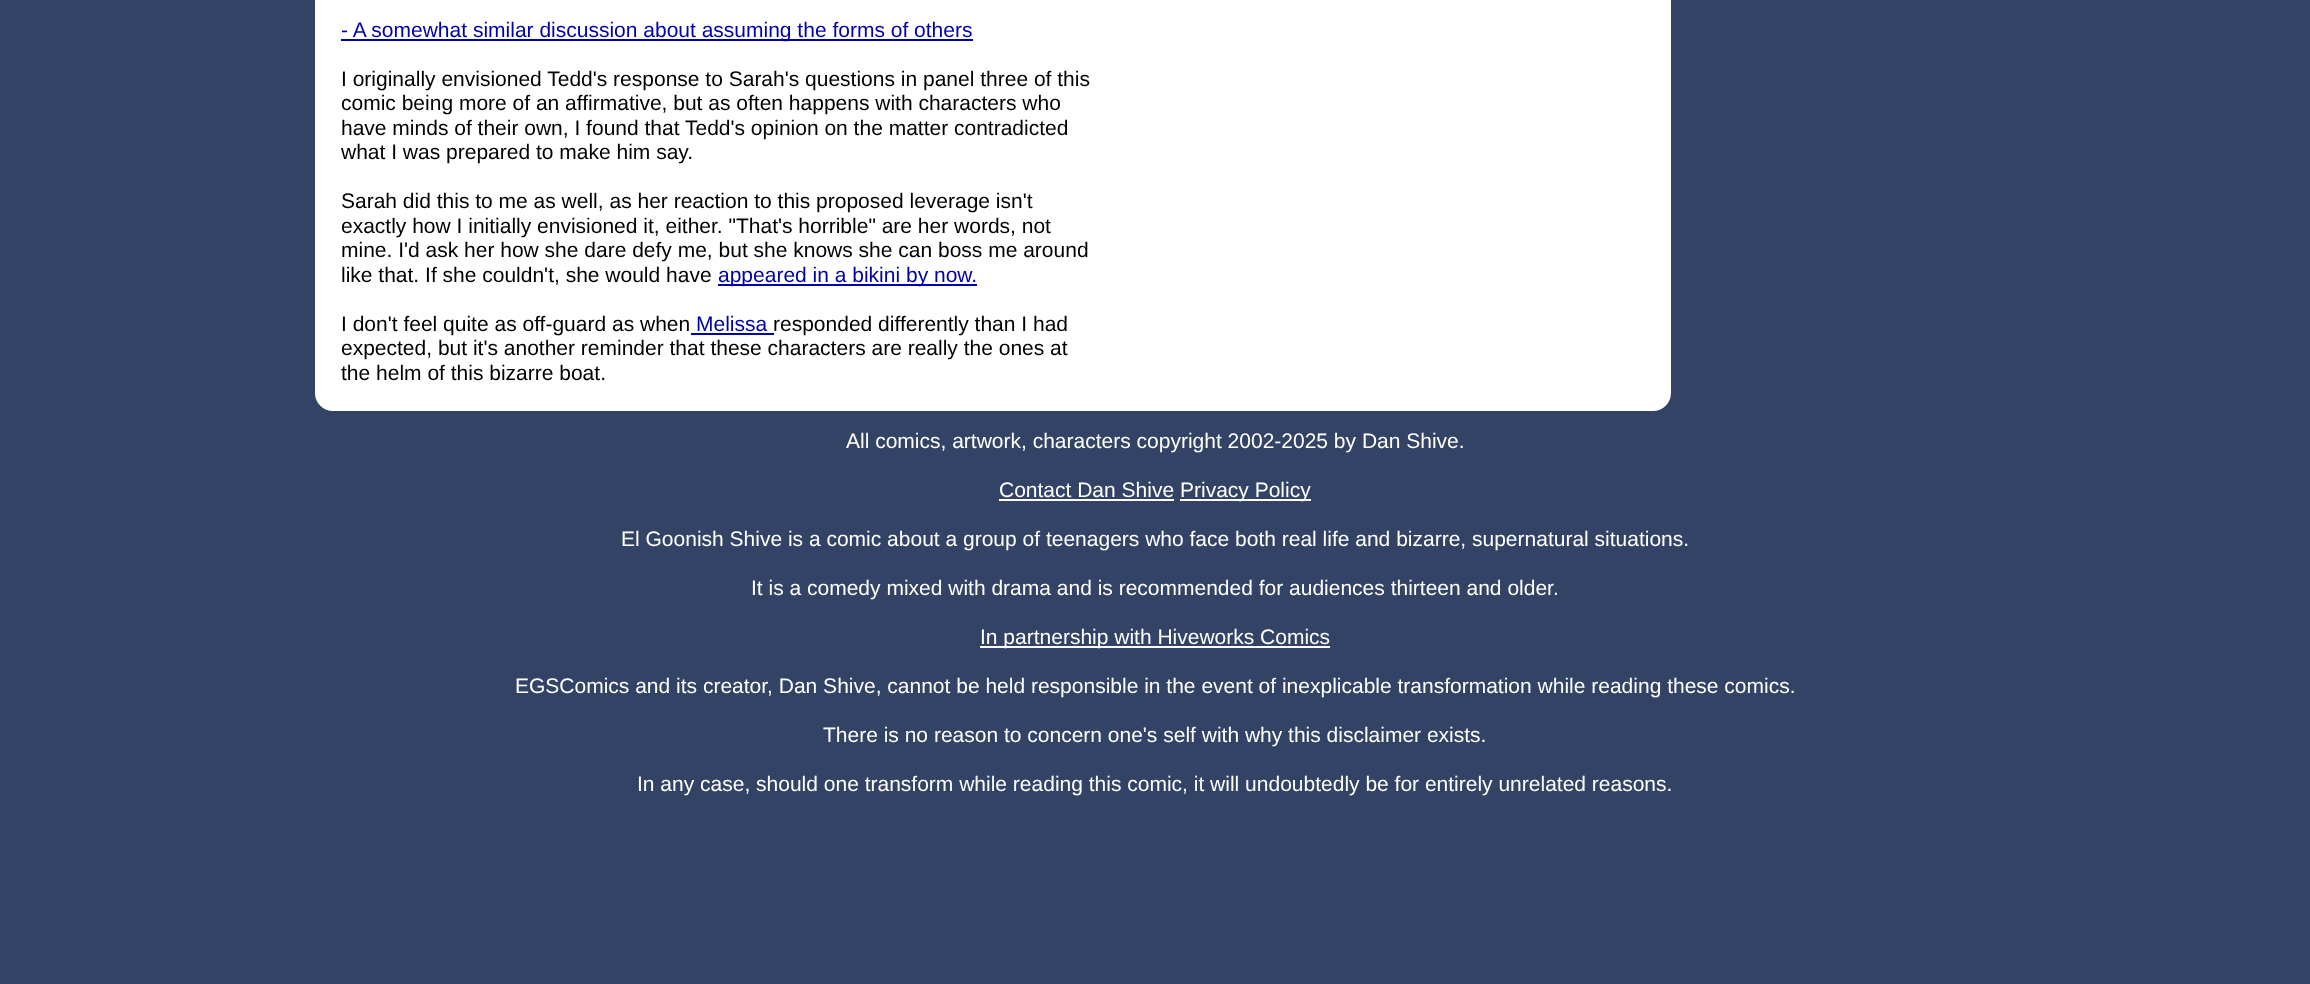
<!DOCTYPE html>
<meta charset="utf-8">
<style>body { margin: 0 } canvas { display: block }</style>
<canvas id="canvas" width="2310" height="984"></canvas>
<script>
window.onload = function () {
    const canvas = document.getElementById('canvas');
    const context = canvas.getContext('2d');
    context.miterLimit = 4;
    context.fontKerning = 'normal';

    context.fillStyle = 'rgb(51, 67, 102)';
    context.fillRect(0, 0, 2310, 984);
    context.fillStyle = 'rgb(255, 255, 255)';
    context.beginPath();
    context.roundRect(315, -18, 1356, 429, 18);
    context.fill();
    context.fillStyle = 'rgb(0, 0, 170)';
    context.fillRect(341, 39, 632, 2);
    context.fillRect(718, 284, 259, 2);
    context.fillRect(691, 333, 83, 2);
    context.fillStyle = 'rgb(255, 255, 255)';
    context.fillRect(999, 499, 175, 2);
    context.fillRect(1180, 499, 131, 2);
    context.fillRect(980, 646, 350, 2);
    context.font = '21px Liberation Sans';
    context.fillStyle = 'rgb(0, 0, 170)';
    context.fillText('- A somewhat similar discussion about assuming the forms of others', 341, 37);
    context.fillStyle = 'rgb(0, 0, 0)';
    context.fillText('I originally envisioned Tedd\'s response to Sarah\'s questions in panel three of this', 341, 86);
    context.fillText('comic being more of an affirmative, but as often happens with characters who', 341, 110);
    context.fillText('have minds of their own, I found that Tedd\'s opinion on the matter contradicted', 341, 135);
    context.fillText('what I was prepared to make him say.', 341, 159);
    context.fillText('Sarah did this to me as well, as her reaction to this proposed leverage isn\'t', 341, 208);
    context.fillText('exactly how I initially envisioned it, either. "That\'s horrible" are her words, not', 341, 233);
    context.fillText('mine. I\'d ask her how she dare defy me, but she knows she can boss me around', 341, 257);
    context.fillText('like that. If she couldn\'t, she would have', 341, 282);
    context.fillStyle = 'rgb(0, 0, 170)';
    context.fillText('appeared in a bikini by now.', 718, 282);
    context.fillStyle = 'rgb(0, 0, 0)';
    context.fillText('I don\'t feel quite as off-guard as when', 341, 331);
    context.fillStyle = 'rgb(0, 0, 170)';
    context.fillText('Melissa', 696, 331);
    context.fillStyle = 'rgb(0, 0, 0)';
    context.fillText('responded differently than I had', 773, 331);
    context.fillText('expected, but it\'s another reminder that these characters are really the ones at', 341, 355);
    context.fillText('the helm of this bizarre boat.', 341, 380);
    context.fillStyle = 'rgb(255, 255, 255)';
    context.fillText('All comics, artwork, characters copyright 2002-2025 by Dan Shive.', 846, 448);
    context.fillText('Contact Dan Shive', 999, 497);
    context.fillText('Privacy Policy', 1180, 497);
    context.fillText('El Goonish Shive is a comic about a group of teenagers who face both real life and bizarre, supernatural situations.', 621, 546);
    context.fillText('It is a comedy mixed with drama and is recommended for audiences thirteen and older.', 751, 595);
    context.fillText('In partnership with Hiveworks Comics', 980, 644);
    context.fillText('EGSComics and its creator, Dan Shive, cannot be held responsible in the event of inexplicable transformation while reading these comics.', 515, 693);
    context.fillText('There is no reason to concern one\'s self with why this disclaimer exists.', 823, 742);
    context.fillText('In any case, should one transform while reading this comic, it will undoubtedly be for entirely unrelated reasons.', 637, 791);
};
</script>
